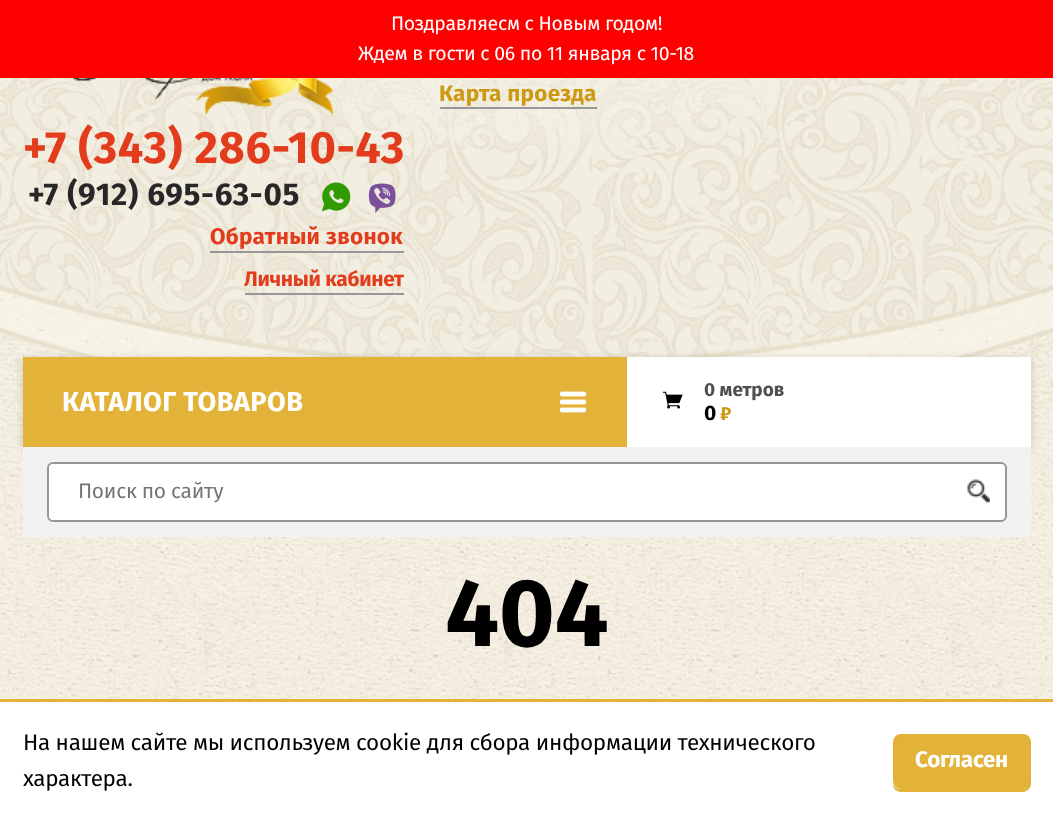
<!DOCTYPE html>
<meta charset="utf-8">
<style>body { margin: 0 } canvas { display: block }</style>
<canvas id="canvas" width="1053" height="819"></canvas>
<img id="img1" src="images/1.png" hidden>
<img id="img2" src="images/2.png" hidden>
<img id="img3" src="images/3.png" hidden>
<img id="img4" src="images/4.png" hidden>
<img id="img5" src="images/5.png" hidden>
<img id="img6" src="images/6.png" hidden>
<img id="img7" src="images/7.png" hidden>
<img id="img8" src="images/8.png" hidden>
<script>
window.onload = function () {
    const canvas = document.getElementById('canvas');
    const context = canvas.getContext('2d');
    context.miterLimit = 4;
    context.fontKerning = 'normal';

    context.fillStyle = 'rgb(255, 255, 255)';
    context.fillRect(0, 0, 1053, 819);
    context.drawImage(document.getElementById('img1'), 0, 470, 1053, 229);
    context.drawImage(document.getElementById('img2'), 0, 78, 1053, 393);
    context.fillStyle = 'rgb(255, 0, 0)';
    context.fillRect(0, 0, 1053, 78);
    context.drawImage(document.getElementById('img3'), 73, 78, 260, 37);
    context.fillStyle = 'rgb(151, 151, 151)';
    context.fillRect(440, 107, 157, 2);
    context.drawImage(document.getElementById('img4'), 321, 182, 30, 30);
    context.drawImage(document.getElementById('img5'), 368, 183, 28, 30);
    context.fillRect(210, 251, 194, 2);
    context.fillRect(245, 293, 159, 2);
    context.fillStyle = 'rgba(0, 0, 0, 0.16)';
    context.filter = 'blur(4.5px)';
    context.beginPath();
    context.rect(23, 359, 1008, 90);
    context.fill();
    context.filter = 'none';
    context.fillStyle = 'rgb(255, 255, 255)';
    context.fillRect(627, 357, 404, 90);
    context.drawImage(document.getElementById('img6'), 662, 391, 21, 18);
    context.fillStyle = 'rgb(242, 242, 242)';
    context.fillRect(23, 447, 1008, 90);
    context.fillStyle = 'rgb(255, 255, 255)';
    context.beginPath();
    context.roundRect(48, 463, 958, 58, 5);
    context.fill();
    context.strokeStyle = 'rgb(151, 151, 151)';
    context.lineWidth = 2;
    context.stroke();
    context.drawImage(document.getElementById('img7'), 967, 479, 23, 25);
    context.fillStyle = 'rgb(226, 178, 57)';
    context.fillRect(23, 357, 604, 90);
    context.drawImage(document.getElementById('img8'), 559, 391, 28, 22);
    context.fillRect(0, 699, 1053, 3);
    context.beginPath();
    context.moveTo(893, 784);
    context.bezierCurveTo(893, 789, 897, 792, 901, 792);
    context.lineTo(1023, 792);
    context.bezierCurveTo(1027, 792, 1031, 788, 1031, 784);
    context.lineTo(1031, 745);
    context.lineTo(1030, 742);
    context.lineTo(1030, 782);
    context.bezierCurveTo(1030, 786, 1027, 789, 1023, 789);
    context.lineTo(900, 789);
    context.bezierCurveTo(897, 789, 894, 787, 893, 784);
    context.closePath();
    context.fill();
    context.beginPath();
    context.roundRect(894.5, 735.5, 135, 52, 6.5);
    context.fill();
    context.strokeStyle = 'rgb(226, 178, 57)';
    context.lineWidth = 3;
    context.stroke();
    context.letterSpacing = '-0.3px';
    context.font = '19.5px Fira Sans';
    context.fillStyle = 'rgb(255, 255, 255)';
    context.fillText('Поздравляесм с Новым годом!', 391, 30);
    context.fillText('Ждем в гости с 06 по 11 января с 10-18', 358, 60);
    context.letterSpacing = '0.3px';
    context.font = 'bold 22.5px Fira Sans';
    context.fillStyle = 'rgb(205, 152, 18)';
    context.fillText('Карта проезда', 439, 101);
    context.letterSpacing = '0.7px';
    context.font = 'bold 45.25px Fira Sans';
    context.fillStyle = 'rgb(226, 60, 28)';
    context.fillText('+7 (343) 286-10-43', 23, 163);
    context.font = 'bold 31.5px Fira Sans';
    context.fillStyle = 'rgb(39, 39, 39)';
    context.fillText('+7 (912) 695-63-05', 28, 205);
    context.letterSpacing = '0.3px';
    context.font = 'bold 22.5px Fira Sans';
    context.fillStyle = 'rgb(226, 60, 28)';
    context.fillText('Обратный звонок', 210, 244);
    context.letterSpacing = '-0.3px';
    context.font = 'bold 21px Fira Sans';
    context.fillText('Личный кабинет', 244, 286);
    context.letterSpacing = '0px';
    context.font = 'bold 19px Fira Sans';
    context.fillStyle = 'rgb(78, 78, 78)';
    context.fillText('0 метров', 704, 396);
    context.letterSpacing = '-0.3px';
    context.font = 'bold 21px Fira Sans';
    context.fillStyle = 'rgb(0, 0, 0)';
    context.fillText('0', 704, 420);
    context.letterSpacing = '0px';
    context.font = 'bold 19px Fira Sans';
    context.fillStyle = 'rgb(205, 152, 18)';
    context.fillText('₽', 720, 420);
    context.letterSpacing = '-0.3px';
    context.font = '21px Fira Sans';
    context.fillStyle = 'rgb(117, 117, 117)';
    context.fillText('Поиск по сайту', 78, 498);
    context.letterSpacing = '0.4px';
    context.font = 'bold 27.25px Fira Sans';
    context.fillStyle = 'rgb(255, 255, 255)';
    context.fillText('КАТАЛОГ ТОВАРОВ', 62, 411);
    context.letterSpacing = '-0.5px';
    context.font = 'bold 96px Fira Sans';
    context.fillStyle = 'rgb(0, 0, 0)';
    context.fillText('404', 445, 646);
    context.letterSpacing = '-0.3px';
    context.font = '22.5px Fira Sans';
    context.fillText('На нашем сайте мы используем cookie для сбора информации технического', 23, 750);
    context.fillText('характера.', 23, 786);
    context.font = 'bold 22.5px Fira Sans';
    context.fillStyle = 'rgb(255, 255, 255)';
    context.fillText('Согласен', 915, 767);
};
</script>
